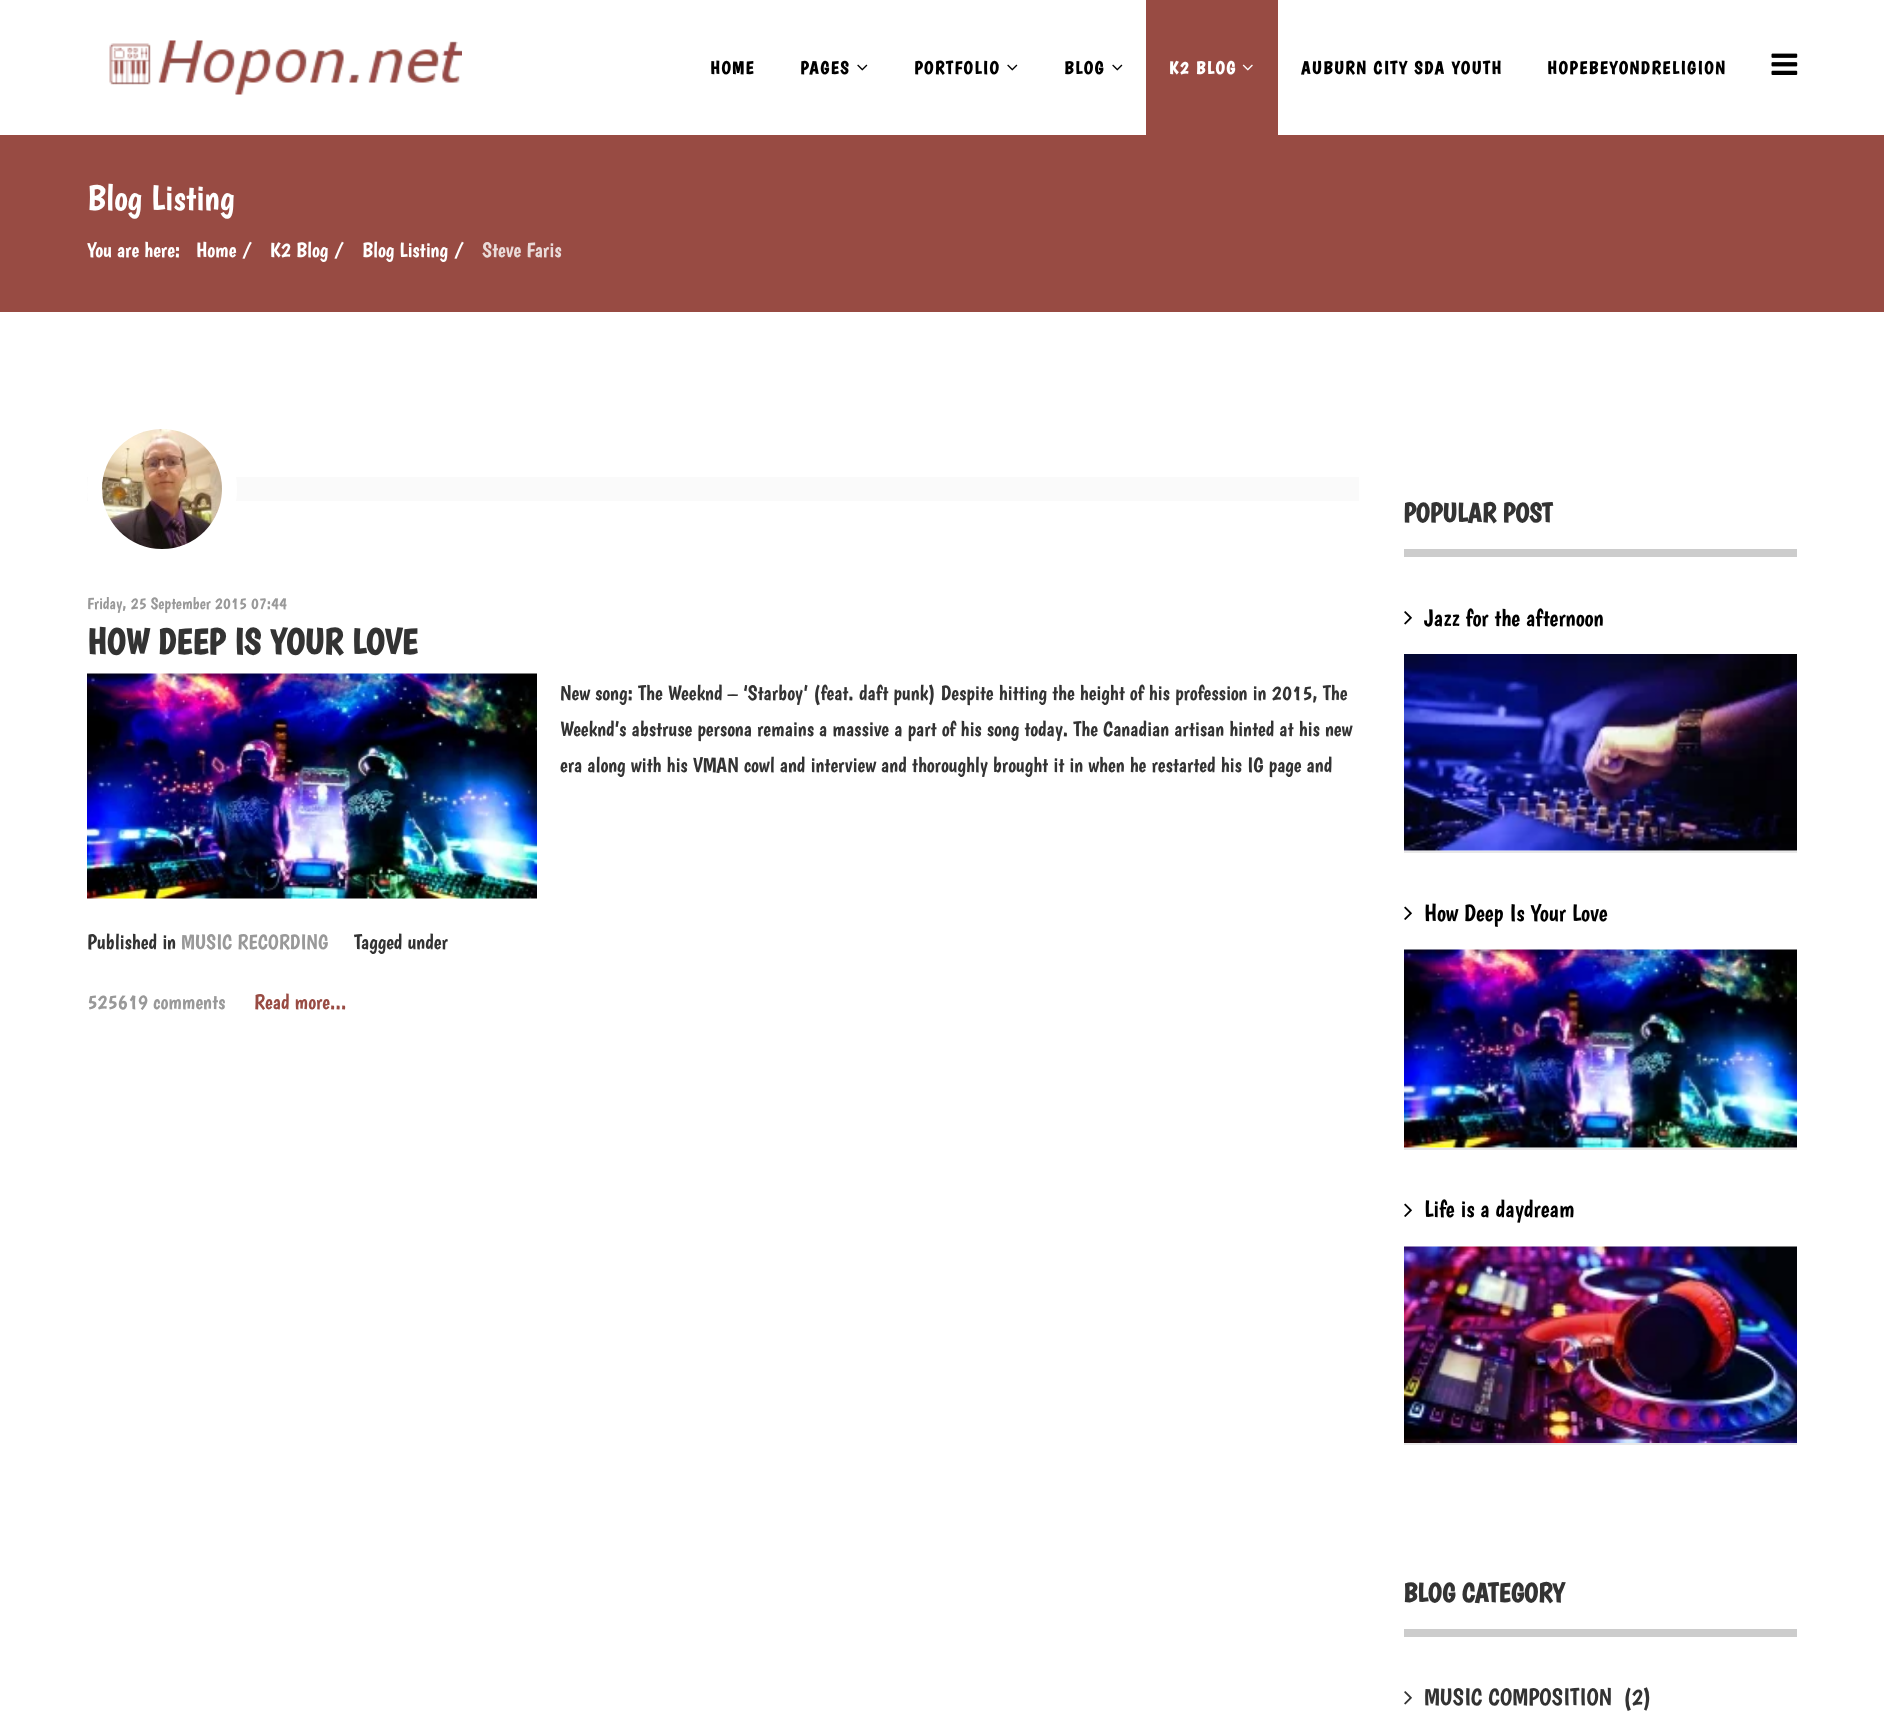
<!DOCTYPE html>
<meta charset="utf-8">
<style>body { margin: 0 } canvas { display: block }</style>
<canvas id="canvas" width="1884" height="1731"></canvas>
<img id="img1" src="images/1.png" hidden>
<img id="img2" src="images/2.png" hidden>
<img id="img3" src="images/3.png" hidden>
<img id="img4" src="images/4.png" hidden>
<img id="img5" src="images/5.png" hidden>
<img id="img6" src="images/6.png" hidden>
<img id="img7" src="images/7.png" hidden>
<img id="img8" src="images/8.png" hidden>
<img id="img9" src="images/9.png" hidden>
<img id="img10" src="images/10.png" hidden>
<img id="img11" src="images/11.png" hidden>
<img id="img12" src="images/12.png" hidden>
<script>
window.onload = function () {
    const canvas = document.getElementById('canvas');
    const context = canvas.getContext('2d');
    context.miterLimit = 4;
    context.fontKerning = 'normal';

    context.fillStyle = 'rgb(255, 255, 255)';
    context.fillRect(0, 0, 1884, 1731);
    context.drawImage(document.getElementById('img1'), 109, 40, 353, 55);
    context.drawImage(document.getElementById('img2'), 857, 64, 11, 7);
    context.drawImage(document.getElementById('img2'), 1007, 64, 11, 7);
    context.drawImage(document.getElementById('img2'), 1112, 64, 11, 7);
    context.fillStyle = 'rgb(152, 75, 67)';
    context.fillRect(1146, 0, 132, 135);
    context.drawImage(document.getElementById('img3'), 1242, 64, 11, 7);
    context.drawImage(document.getElementById('img4'), 1771, 53, 27, 22);
    context.fillRect(0, 135, 1884, 177);
    context.fillStyle = 'rgb(250, 250, 250)';
    context.fillRect(87, 477, 1272, 24);
    context.beginPath();
    context.arc(162, 489, 67.5, 0, 2 * Math.PI);
    context.strokeStyle = 'rgb(255, 255, 255)';
    context.lineWidth = 15;
    context.stroke();
    context.drawImage(document.getElementById('img5'), 102, 429, 120, 120);
    context.drawImage(document.getElementById('img6'), 87, 673, 450, 226);
    context.fillStyle = 'rgb(204, 204, 204)';
    context.fillRect(1404, 549, 393, 8);
    context.fillStyle = 'rgb(232, 232, 232)';
    context.fillRect(1404, 851, 393, 2);
    context.drawImage(document.getElementById('img7'), 1404, 611, 8, 14);
    context.drawImage(document.getElementById('img8'), 1404, 654, 393, 197);
    context.fillRect(1404, 1148, 393, 2);
    context.drawImage(document.getElementById('img9'), 1404, 906, 8, 14);
    context.drawImage(document.getElementById('img10'), 1404, 949, 393, 199);
    context.fillRect(1404, 1443, 393, 2);
    context.drawImage(document.getElementById('img9'), 1404, 1203, 8, 14);
    context.drawImage(document.getElementById('img11'), 1404, 1246, 393, 197);
    context.fillStyle = 'rgb(204, 204, 204)';
    context.fillRect(1404, 1629, 393, 8);
    context.drawImage(document.getElementById('img12'), 1404, 1691, 8, 14);
    context.letterSpacing = '1.5px';
    context.font = 'bold 18px Boogaloo';
    context.fillStyle = 'rgb(0, 0, 0)';
    context.fillText('HOME', 710, 74);
    context.fillText('PAGES', 800, 74);
    context.fillText('PORTFOLIO', 914, 74);
    context.fillText('BLOG', 1064, 74);
    context.fillStyle = 'rgb(255, 255, 255)';
    context.fillText('K2 BLOG', 1169, 74);
    context.fillStyle = 'rgb(0, 0, 0)';
    context.fillText('AUBURN CITY SDA YOUTH', 1301, 74);
    context.fillText('HOPEBEYONDRELIGION', 1547, 74);
    context.letterSpacing = '0px';
    context.font = '36px Boogaloo';
    context.fillStyle = 'rgb(255, 255, 255)';
    context.fillText('Blog Listing', 87, 210);
    context.font = '21px Boogaloo';
    context.fillText('You are here:', 87, 257);
    context.fillText('Home', 196, 257);
    context.fillText('/', 243, 257);
    context.fillText('K2 Blog', 270, 257);
    context.fillText('/', 335, 257);
    context.fillText('Blog Listing', 362, 257);
    context.fillText('/', 455, 257);
    context.fillStyle = 'rgb(234, 219, 217)';
    context.fillText('Steve Faris', 482, 257);
    context.font = '16.5px Boogaloo';
    context.fillStyle = 'rgb(153, 153, 153)';
    context.fillText('Friday, 25 September 2015 07:44', 87, 609);
    context.font = 'bold 36px Boogaloo';
    context.fillStyle = 'rgb(51, 51, 51)';
    context.fillText('HOW DEEP IS YOUR LOVE', 87, 654);
    context.font = '21px Boogaloo';
    context.fillText('New song: The Weeknd – ‘Starboy’ (feat. daft punk) Despite hitting the height of his profession in 2015, The', 560, 700);
    context.fillText('Weeknd’s abstruse persona remains a massive a part of his song today. The Canadian artisan hinted at his new', 560, 736);
    context.fillText('era along with his VMAN cowl and interview and thoroughly brought it in when he restarted his IG page and', 560, 772);
    context.fillText('Published in', 87, 949);
    context.fillStyle = 'rgb(153, 153, 153)';
    context.fillText('MUSIC RECORDING', 181, 949);
    context.fillStyle = 'rgb(51, 51, 51)';
    context.fillText('Tagged under', 354, 949);
    context.fillStyle = 'rgb(153, 153, 153)';
    context.fillText('525619 comments', 87, 1009);
    context.fillStyle = 'rgb(152, 75, 67)';
    context.fillText('Read more...', 254, 1009);
    context.font = 'bold 27px Boogaloo';
    context.fillStyle = 'rgb(51, 51, 51)';
    context.fillText('POPULAR POST', 1403, 522);
    context.font = '24px Boogaloo';
    context.fillStyle = 'rgb(0, 0, 0)';
    context.fillText('Jazz for the afternoon', 1424, 626);
    context.fillText('How Deep Is Your Love', 1424, 921);
    context.fillText('Life is a daydream', 1424, 1217);
    context.font = 'bold 27px Boogaloo';
    context.fillStyle = 'rgb(51, 51, 51)';
    context.fillText('BLOG CATEGORY', 1403, 1602);
    context.font = '24px Boogaloo';
    context.fillText('MUSIC COMPOSITION', 1424, 1705);
    context.fillText('(2)', 1623, 1705);
};
</script>
